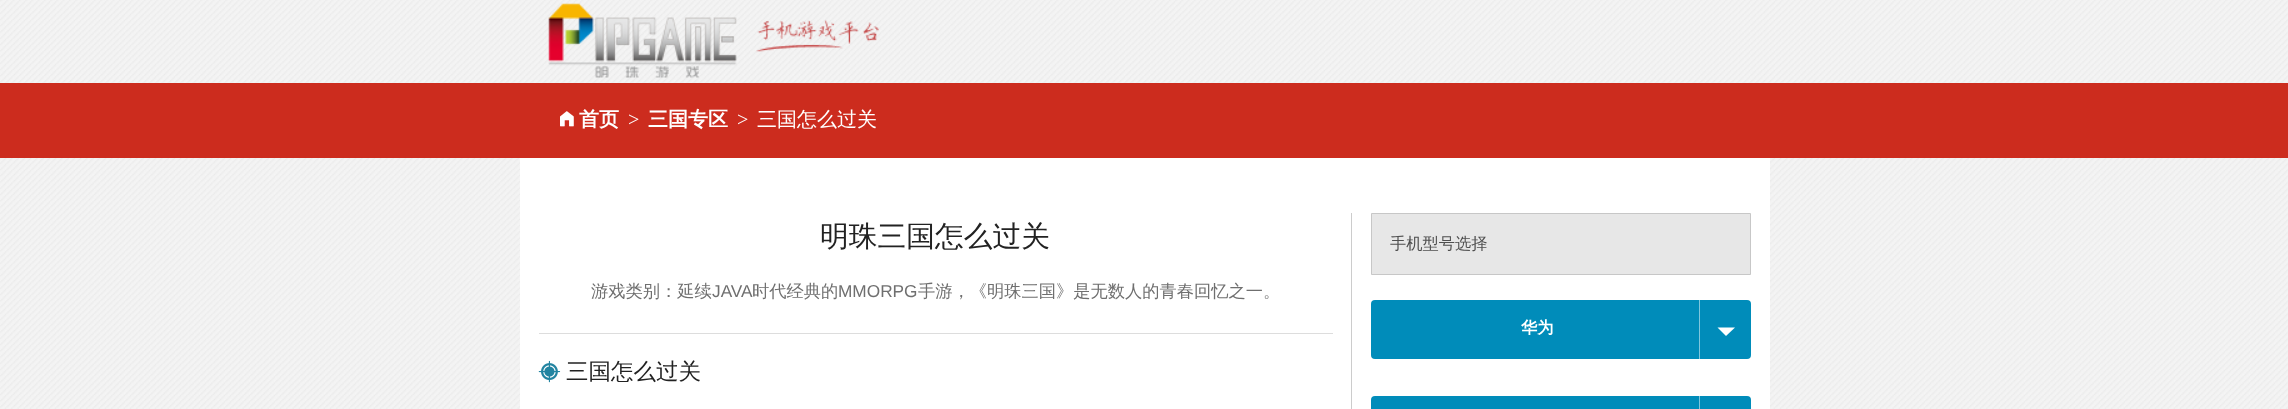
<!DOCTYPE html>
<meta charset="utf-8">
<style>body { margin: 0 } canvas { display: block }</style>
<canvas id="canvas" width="2288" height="409"></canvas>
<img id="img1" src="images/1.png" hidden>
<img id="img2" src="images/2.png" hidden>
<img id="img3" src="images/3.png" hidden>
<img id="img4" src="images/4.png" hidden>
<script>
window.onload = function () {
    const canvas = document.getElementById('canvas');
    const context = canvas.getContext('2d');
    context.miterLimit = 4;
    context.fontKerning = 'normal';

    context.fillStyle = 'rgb(255, 255, 255)';
    context.fillRect(0, 0, 2288, 409);
    context.drawImage(document.getElementById('img1'), 0, 0, 2288, 409);
    context.drawImage(document.getElementById('img2'), 548, 3, 331, 75);
    context.fillStyle = 'rgb(204, 44, 30)';
    context.fillRect(0, 83, 2288, 75);
    context.drawImage(document.getElementById('img3'), 560, 111, 14, 16);
    context.fillStyle = 'rgb(255, 255, 255)';
    context.fillRect(520, 158, 1250, 251);
    context.fillStyle = 'rgb(204, 204, 204)';
    context.fillRect(1351, 213, 1, 196);
    context.fillStyle = 'rgb(221, 221, 221)';
    context.fillRect(539, 333, 794, 1);
    context.drawImage(document.getElementById('img4'), 538, 360, 23, 23);
    context.fillStyle = 'rgb(231, 231, 231)';
    context.beginPath();
    context.rect(1371.5, 213.5, 379, 61);
    context.fill();
    context.strokeStyle = 'rgb(199, 199, 199)';
    context.stroke();
    context.fillStyle = 'rgb(0, 140, 186)';
    context.beginPath();
    context.roundRect(1371, 300, 380, 59, 4);
    context.fill();
    context.fillStyle = 'rgb(128, 198, 221)';
    context.fillRect(1699, 300, 1, 59);
    context.fillStyle = 'rgb(255, 255, 255)';
    context.beginPath();
    context.moveTo(1717.5, 327.5);
    context.lineTo(1735, 327.5);
    context.lineTo(1726, 336);
    context.closePath();
    context.fill();
    context.fillStyle = 'rgb(0, 140, 186)';
    context.beginPath();
    context.roundRect(1371, 396, 380, 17, 4);
    context.fill();
    context.fillStyle = 'rgb(128, 198, 221)';
    context.fillRect(1699, 396, 1, 13);
    context.font = 'bold 20px WenQuanYi Zen Hei';
    context.fillStyle = 'rgb(255, 255, 255)';
    context.fillText('首页', 579, 126);
    context.font = '20px Liberation Serif';
    context.fillText('>', 628, 126);
    context.font = 'bold 20px WenQuanYi Zen Hei';
    context.fillText('三国专区', 648, 126);
    context.font = '20px Liberation Serif';
    context.fillText('>', 737, 126);
    context.font = '500 20px WenQuanYi Zen Hei';
    context.fillText('三国怎么过关', 757, 126);
    context.font = '500 28.75px WenQuanYi Zen Hei';
    context.fillStyle = 'rgb(34, 34, 34)';
    context.fillText('明珠三国怎么过关', 820, 246);
    context.font = '500 17.25px WenQuanYi Zen Hei';
    context.fillStyle = 'rgb(111, 111, 111)';
    context.fillText('游戏类别：延续', 591, 297);
    context.font = '17.25px Liberation Sans';
    context.fillText('JAVA', 712, 297);
    context.font = '500 17.25px WenQuanYi Zen Hei';
    context.fillText('时代经典的', 752, 297);
    context.font = '17.25px Liberation Sans';
    context.fillText('MMORPG', 838, 297);
    context.font = '500 17.25px WenQuanYi Zen Hei';
    context.fillText('手游，《明珠三国》是无数人的青春回忆之一。', 918, 297);
    context.font = '500 22.5px WenQuanYi Zen Hei';
    context.fillStyle = 'rgb(34, 34, 34)';
    context.fillText('三国怎么过关', 566, 379);
    context.font = '500 16.25px WenQuanYi Zen Hei';
    context.fillStyle = 'rgb(79, 79, 79)';
    context.fillText('手机型号选择', 1390, 249);
    context.font = 'bold 16.25px WenQuanYi Zen Hei';
    context.fillStyle = 'rgb(255, 255, 255)';
    context.fillText('华为', 1521, 333);
};
</script>
